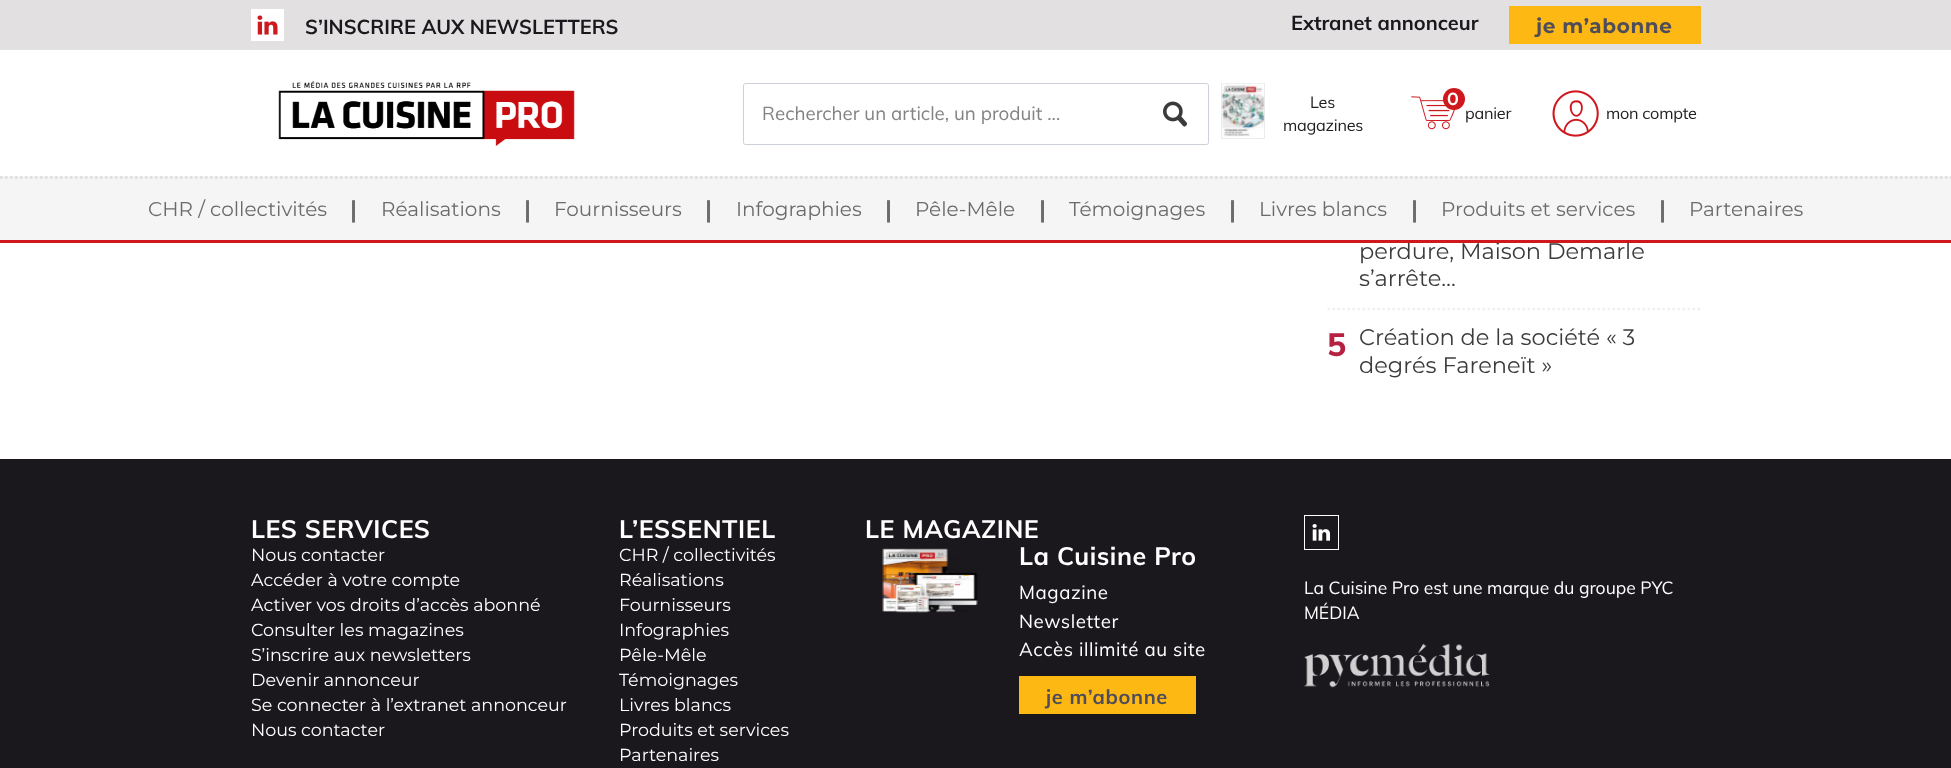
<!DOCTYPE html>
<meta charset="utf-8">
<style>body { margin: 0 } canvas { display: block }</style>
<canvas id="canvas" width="1951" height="768"></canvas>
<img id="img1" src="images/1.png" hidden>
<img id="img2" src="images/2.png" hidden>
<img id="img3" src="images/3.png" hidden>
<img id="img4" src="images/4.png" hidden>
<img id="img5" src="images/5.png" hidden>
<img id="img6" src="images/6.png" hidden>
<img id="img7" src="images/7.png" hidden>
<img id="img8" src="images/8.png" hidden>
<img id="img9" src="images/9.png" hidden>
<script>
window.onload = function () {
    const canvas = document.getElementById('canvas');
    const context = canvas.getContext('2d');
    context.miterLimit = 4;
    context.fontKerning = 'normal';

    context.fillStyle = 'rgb(255, 255, 255)';
    context.fillRect(0, 0, 1951, 768);
    context.fillStyle = 'rgb(227, 224, 225)';
    context.fillRect(0, 0, 1951, 50);
    context.fillStyle = 'rgb(255, 255, 255)';
    context.fillRect(251, 9, 33, 32);
    context.drawImage(document.getElementById('img1'), 257, 15, 21, 20);
    context.fillStyle = 'rgb(253, 184, 19)';
    context.fillRect(1509, 6, 192, 38);
    context.drawImage(document.getElementById('img2'), 278, 81, 297, 65);
    context.beginPath();
    context.roundRect(743.5, 83.5, 465, 61, 2);
    context.strokeStyle = 'rgb(204, 209, 217)';
    context.stroke();
    context.drawImage(document.getElementById('img3'), 1163, 101, 24, 26);
    context.strokeStyle = 'rgb(235, 235, 235)';
    context.strokeRect(1221.5, 83.5, 43, 55);
    context.drawImage(document.getElementById('img4'), 1222, 83, 43, 54);
    context.drawImage(document.getElementById('img5'), 1411, 96, 45, 34);
    context.fillStyle = 'rgb(206, 24, 30)';
    context.beginPath();
    context.arc(1454, 99, 11, 0, 2 * Math.PI);
    context.fill();
    context.drawImage(document.getElementById('img6'), 1552, 90, 47, 47);
    context.fillStyle = 'rgb(245, 245, 245)';
    context.fillRect(0, 176, 1951, 64);
    context.beginPath();
    context.moveTo(0, 177.5);
    context.lineTo(1951, 177.5);
    context.strokeStyle = 'rgb(220, 220, 220)';
    context.lineWidth = 2.5;
    context.setLineDash([2.5, 2.5]);
    context.stroke();
    context.beginPath();
    context.moveTo(1327.5, 309);
    context.lineTo(1701, 309);
    context.strokeStyle = 'rgb(239, 239, 239)';
    context.stroke();
    context.fillStyle = 'rgb(27, 24, 29)';
    context.fillRect(0, 459, 1951, 309);
    context.drawImage(document.getElementById('img7'), 882, 548, 96, 65);
    context.fillStyle = 'rgb(253, 184, 19)';
    context.fillRect(1019, 676, 177, 38);
    context.strokeStyle = 'rgb(255, 255, 255)';
    context.lineWidth = 1;
    context.setLineDash([]);
    context.strokeRect(1304.5, 515.5, 34, 34);
    context.drawImage(document.getElementById('img8'), 1312, 524, 18, 17);
    context.drawImage(document.getElementById('img9'), 1303, 643, 187, 45);
    context.font = 'bold 20px Muli';
    context.fillStyle = 'rgb(27, 24, 29)';
    context.fillText('S’INSCRIRE AUX NEWSLETTERS', 305, 34);
    context.fillText('Extranet annonceur', 1291, 30);
    context.letterSpacing = '0.6px';
    context.font = 'bold 20px Montserrat';
    context.fillStyle = 'rgb(79, 77, 90)';
    context.fillText('je m’abonne', 1536, 33);
    context.letterSpacing = '0px';
    context.font = '18.75px Muli';
    context.fillStyle = 'rgb(131, 131, 131)';
    context.fillText('Rechercher un article, un produit ...', 762, 120);
    context.letterSpacing = '-0.25px';
    context.font = '16.25px Muli';
    context.fillStyle = 'rgb(33, 33, 33)';
    context.fillText('Les', 1310, 108);
    context.fillText('magazines', 1283, 131);
    context.letterSpacing = '0px';
    context.font = '600 17.5px Montserrat';
    context.fillStyle = 'rgb(255, 255, 255)';
    context.fillText('0', 1447, 105);
    context.letterSpacing = '-0.25px';
    context.font = '16.25px Muli';
    context.fillStyle = 'rgb(33, 33, 33)';
    context.fillText('panier', 1465, 119);
    context.fillText('mon compte', 1606, 119);
    context.letterSpacing = '0px';
    context.font = '20px Montserrat';
    context.fillStyle = 'rgb(107, 107, 107)';
    context.fillText('CHR / collectivités', 148, 216);
    context.font = 'bold 25px Muli';
    context.fillText('|', 350, 218);
    context.font = '20px Montserrat';
    context.fillText('Réalisations', 381, 216);
    context.font = 'bold 25px Muli';
    context.fillText('|', 524, 218);
    context.font = '20px Montserrat';
    context.fillText('Fournisseurs', 554, 216);
    context.font = 'bold 25px Muli';
    context.fillText('|', 705, 218);
    context.font = '20px Montserrat';
    context.fillText('Infographies', 736, 216);
    context.font = 'bold 25px Muli';
    context.fillText('|', 885, 218);
    context.font = '20px Montserrat';
    context.fillText('Pêle-Mêle', 915, 216);
    context.font = 'bold 25px Muli';
    context.fillText('|', 1039, 218);
    context.font = '20px Montserrat';
    context.fillText('Témoignages', 1069, 216);
    context.font = 'bold 25px Muli';
    context.fillText('|', 1229, 218);
    context.font = '20px Montserrat';
    context.fillText('Livres blancs', 1259, 216);
    context.font = 'bold 25px Muli';
    context.fillText('|', 1411, 218);
    context.font = '20px Montserrat';
    context.fillText('Produits et services', 1441, 216);
    context.font = 'bold 25px Muli';
    context.fillText('|', 1659, 218);
    context.font = '20px Montserrat';
    context.fillText('Partenaires', 1689, 216);
    context.font = '22.5px Montserrat';
    context.fillStyle = 'rgb(59, 59, 59)';
    context.fillText('perdure, Maison Demarle', 1359, 259);
    context.fillStyle = 'rgb(206, 24, 30)';
    context.fillRect(0, 240, 1951, 3);
    context.fillStyle = 'rgb(59, 59, 59)';
    context.fillText('s’arrête…', 1359, 286);
    context.font = '800 32px Muli';
    context.fillStyle = 'rgb(181, 34, 65)';
    context.fillText('5', 1327, 356);
    context.font = '22.5px Montserrat';
    context.fillStyle = 'rgb(59, 59, 59)';
    context.fillText('Création de la société « 3', 1359, 345);
    context.fillText('degrés Fareneït »', 1359, 373);
    context.letterSpacing = '0.55px';
    context.font = 'bold 25px Muli';
    context.fillStyle = 'rgb(255, 255, 255)';
    context.fillText('LES SERVICES', 251, 538);
    context.letterSpacing = '0px';
    context.font = '17.5px Montserrat';
    context.fillText('Nous contacter', 251, 561);
    context.fillText('Accéder à votre compte', 251, 586);
    context.fillText('Activer vos droits d’accès abonné', 251, 611);
    context.fillText('Consulter les magazines', 251, 636);
    context.fillText('S’inscrire aux newsletters', 251, 661);
    context.fillText('Devenir annonceur', 251, 686);
    context.fillText('Se connecter à l’extranet annonceur', 251, 711);
    context.fillText('Nous contacter', 251, 736);
    context.letterSpacing = '0.55px';
    context.font = 'bold 25px Muli';
    context.fillText('L’ESSENTIEL', 619, 538);
    context.letterSpacing = '0px';
    context.font = '17.5px Montserrat';
    context.fillText('CHR / collectivités', 619, 561);
    context.fillText('Réalisations', 619, 586);
    context.fillText('Fournisseurs', 619, 611);
    context.fillText('Infographies', 619, 636);
    context.fillText('Pêle-Mêle', 619, 661);
    context.fillText('Témoignages', 619, 686);
    context.fillText('Livres blancs', 619, 711);
    context.fillText('Produits et services', 619, 736);
    context.fillText('Partenaires', 619, 761);
    context.letterSpacing = '0.55px';
    context.font = 'bold 25px Muli';
    context.fillText('LE MAGAZINE', 865, 538);
    context.fillText('La Cuisine Pro', 1019, 565);
    context.font = '18.75px Muli';
    context.fillText('Magazine', 1019, 599);
    context.fillText('Newsletter', 1019, 628);
    context.fillText('Accès illimité au site', 1019, 656);
    context.letterSpacing = '0.6px';
    context.font = 'bold 20px Muli';
    context.fillStyle = 'rgb(79, 77, 90)';
    context.fillText('je m’abonne', 1046, 704);
    context.letterSpacing = '0px';
    context.font = '17.5px Muli';
    context.fillStyle = 'rgb(255, 255, 255)';
    context.fillText('La Cuisine Pro est une marque du groupe PYC', 1304, 594);
    context.fillText('MÉDIA', 1304, 619);
};
</script>
